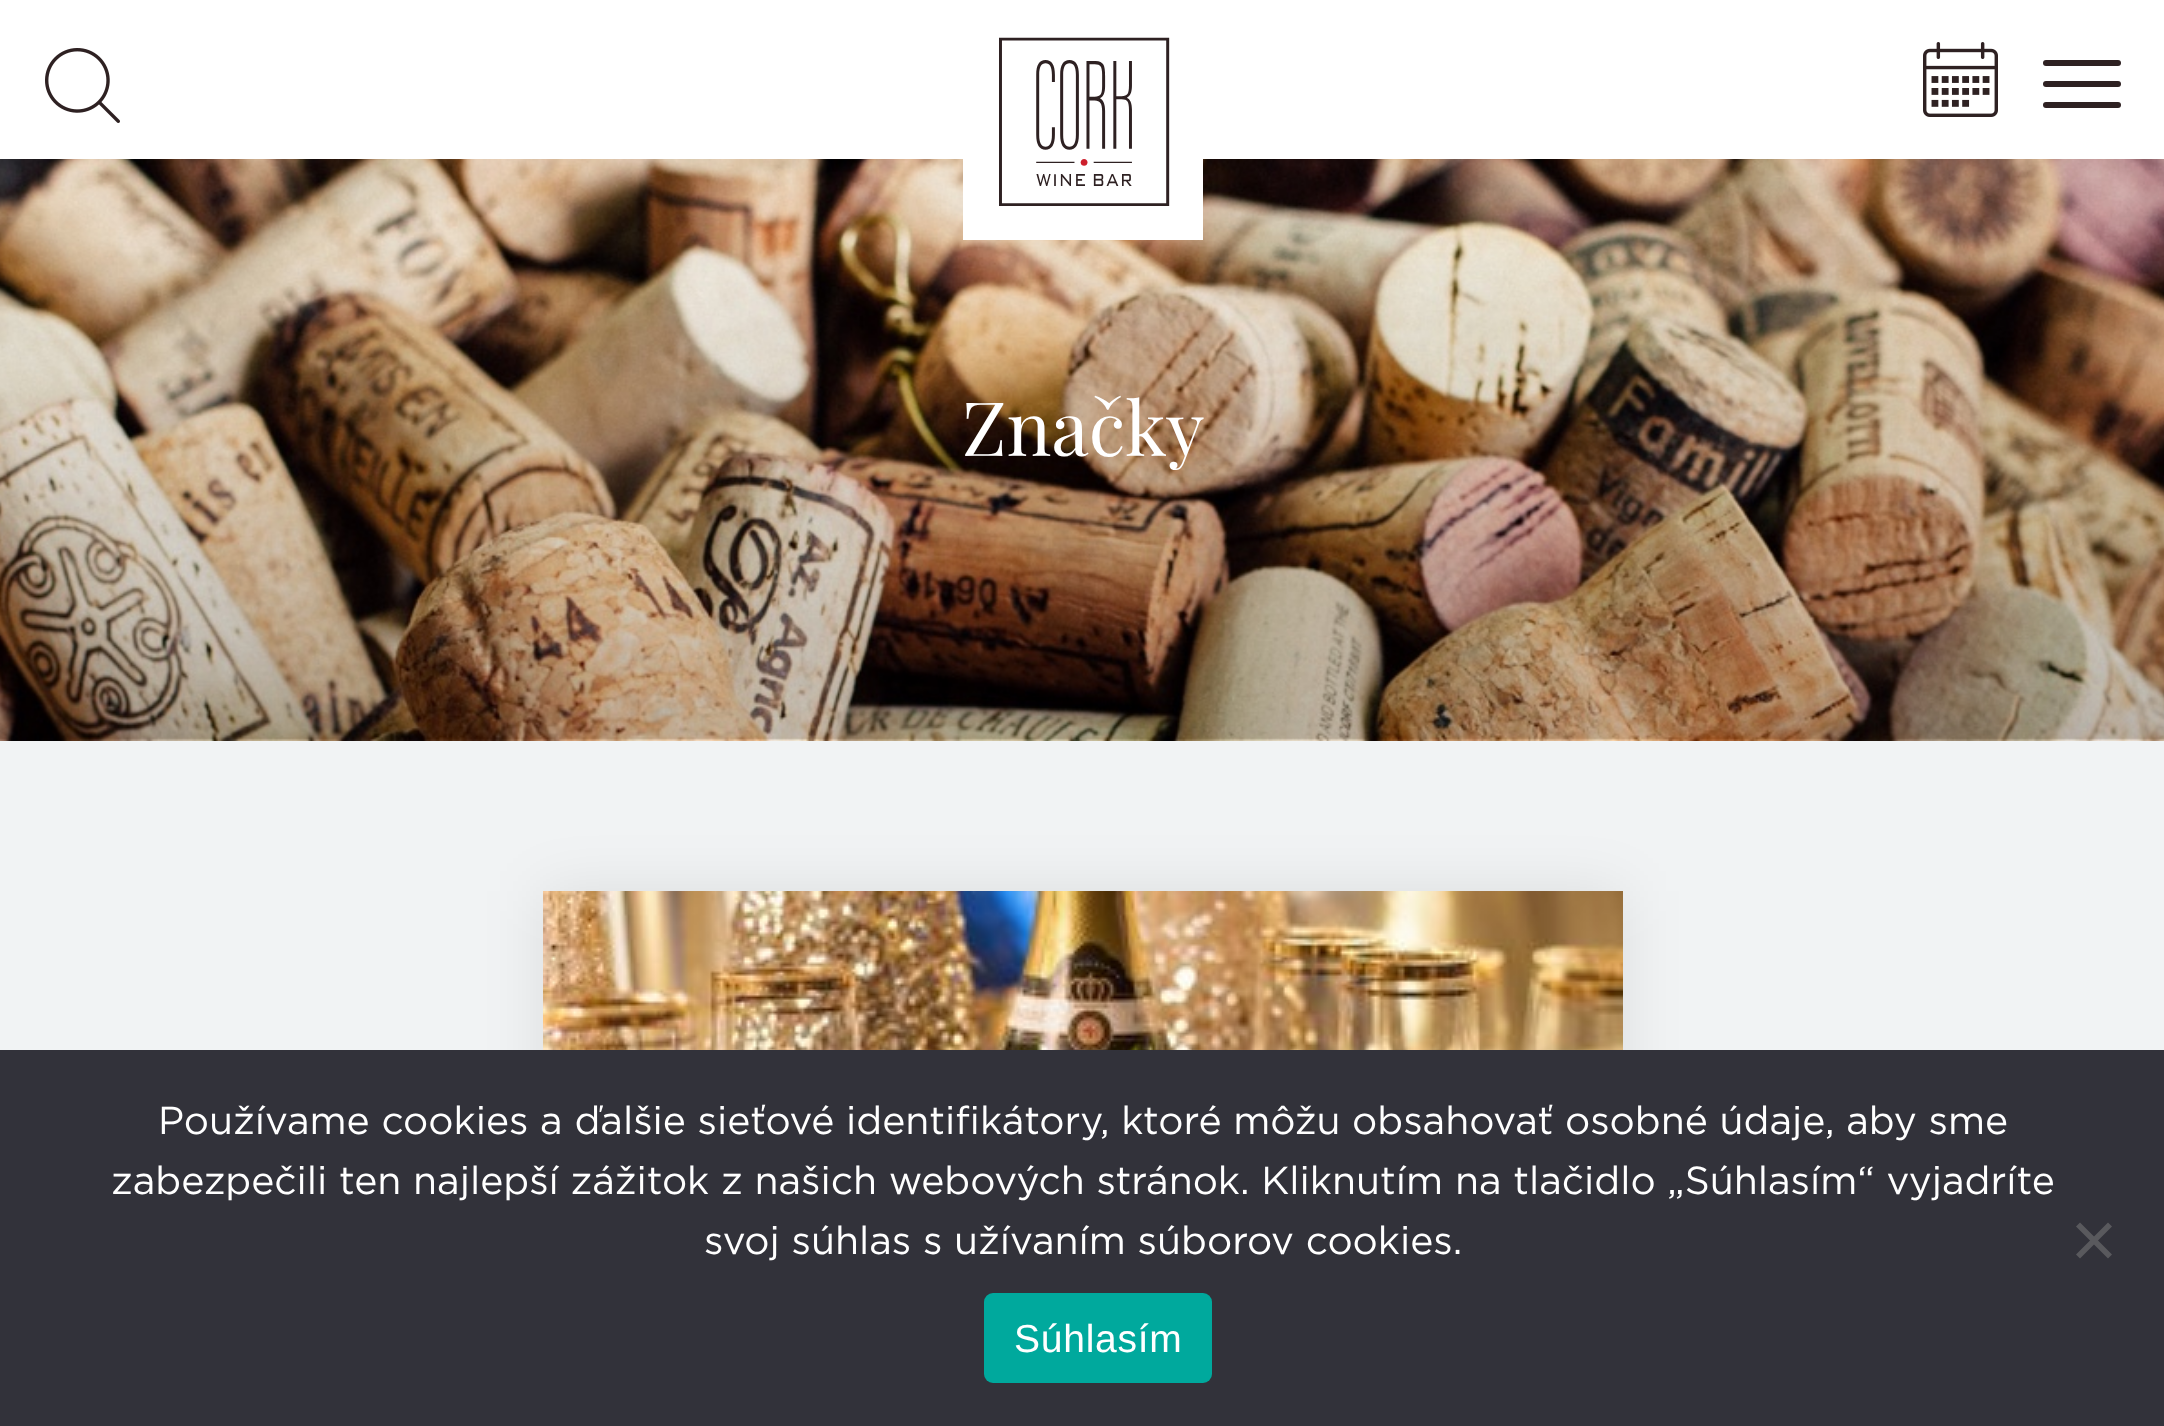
<!DOCTYPE html>
<meta charset="utf-8">
<style>body { margin: 0 } canvas { display: block }</style>
<canvas id="canvas" width="2164" height="1426"></canvas>
<img id="img1" src="images/1.png" hidden>
<img id="img2" src="images/4.png" hidden>
<img id="img3" src="images/2.png" hidden>
<img id="img4" src="images/3.png" hidden>
<img id="img5" src="images/5.png" hidden>
<script>
window.onload = function () {
    const canvas = document.getElementById('canvas');
    const context = canvas.getContext('2d');
    context.miterLimit = 4;
    context.fontKerning = 'normal';

    context.fillStyle = 'rgb(255, 255, 255)';
    context.fillRect(0, 0, 2164, 1426);
    context.drawImage(document.getElementById('img1'), 45, 48, 75, 75);
    context.drawImage(document.getElementById('img2'), 0, 159, 2164, 582);
    context.fillRect(963, 159, 240, 81);
    context.drawImage(document.getElementById('img3'), 999, 37, 171, 169);
    context.drawImage(document.getElementById('img4'), 1923, 42, 75, 75);
    context.fillStyle = 'rgb(46, 33, 34)';
    context.beginPath();
    context.roundRect(2043, 60, 78, 6, 3);
    context.fill();
    context.beginPath();
    context.roundRect(2043, 81, 78, 6, 3);
    context.fill();
    context.beginPath();
    context.roundRect(2043, 102, 78, 6, 3);
    context.fill();
    context.fillStyle = 'rgb(241, 243, 244)';
    context.fillRect(0, 741, 2164, 309);
    context.fillStyle = 'rgba(0, 0, 0, 0.09)';
    context.filter = 'blur(30px)';
    context.beginPath();
    context.rect(543, 891, 1080, 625);
    context.fill();
    context.filter = 'none';
    context.drawImage(document.getElementById('img5'), 543, 891, 1080, 159);
    context.fillStyle = 'rgb(50, 50, 58)';
    context.fillRect(0, 1050, 2164, 376);
    context.fillStyle = 'rgb(89, 89, 93)';
    context.beginPath();
    context.moveTo(2108, 1222.5);
    context.lineTo(2112, 1226.5);
    context.lineTo(2080, 1258.5);
    context.lineTo(2076, 1254.5);
    context.closePath();
    context.fill();
    context.beginPath();
    context.moveTo(2076, 1226.5);
    context.lineTo(2080, 1222.5);
    context.lineTo(2112, 1254.5);
    context.lineTo(2108, 1258.5);
    context.closePath();
    context.fill();
    context.fillStyle = 'rgb(0, 169, 157)';
    context.beginPath();
    context.roundRect(984, 1293, 228, 90, 9);
    context.fill();
    context.font = '75px Playfair Display';
    context.fillStyle = 'rgb(255, 255, 255)';
    context.fillText('Značky', 962, 456);
    context.font = '39px Gotham';
    context.fillText('Používame cookies a ďalšie sieťové identifikátory, ktoré môžu obsahovať osobné údaje, aby sme', 158, 1134);
    context.fillText('zabezpečili ten najlepší zážitok z našich webových stránok. Kliknutím na tlačidlo „Súhlasím“ vyjadríte', 111, 1194);
    context.fillText('svoj súhlas s užívaním súborov cookies.', 704, 1254);
    context.letterSpacing = '0.75px';
    context.font = '39px Liberation Sans';
    context.fillText('Súhlasím', 1014, 1352);
};
</script>
